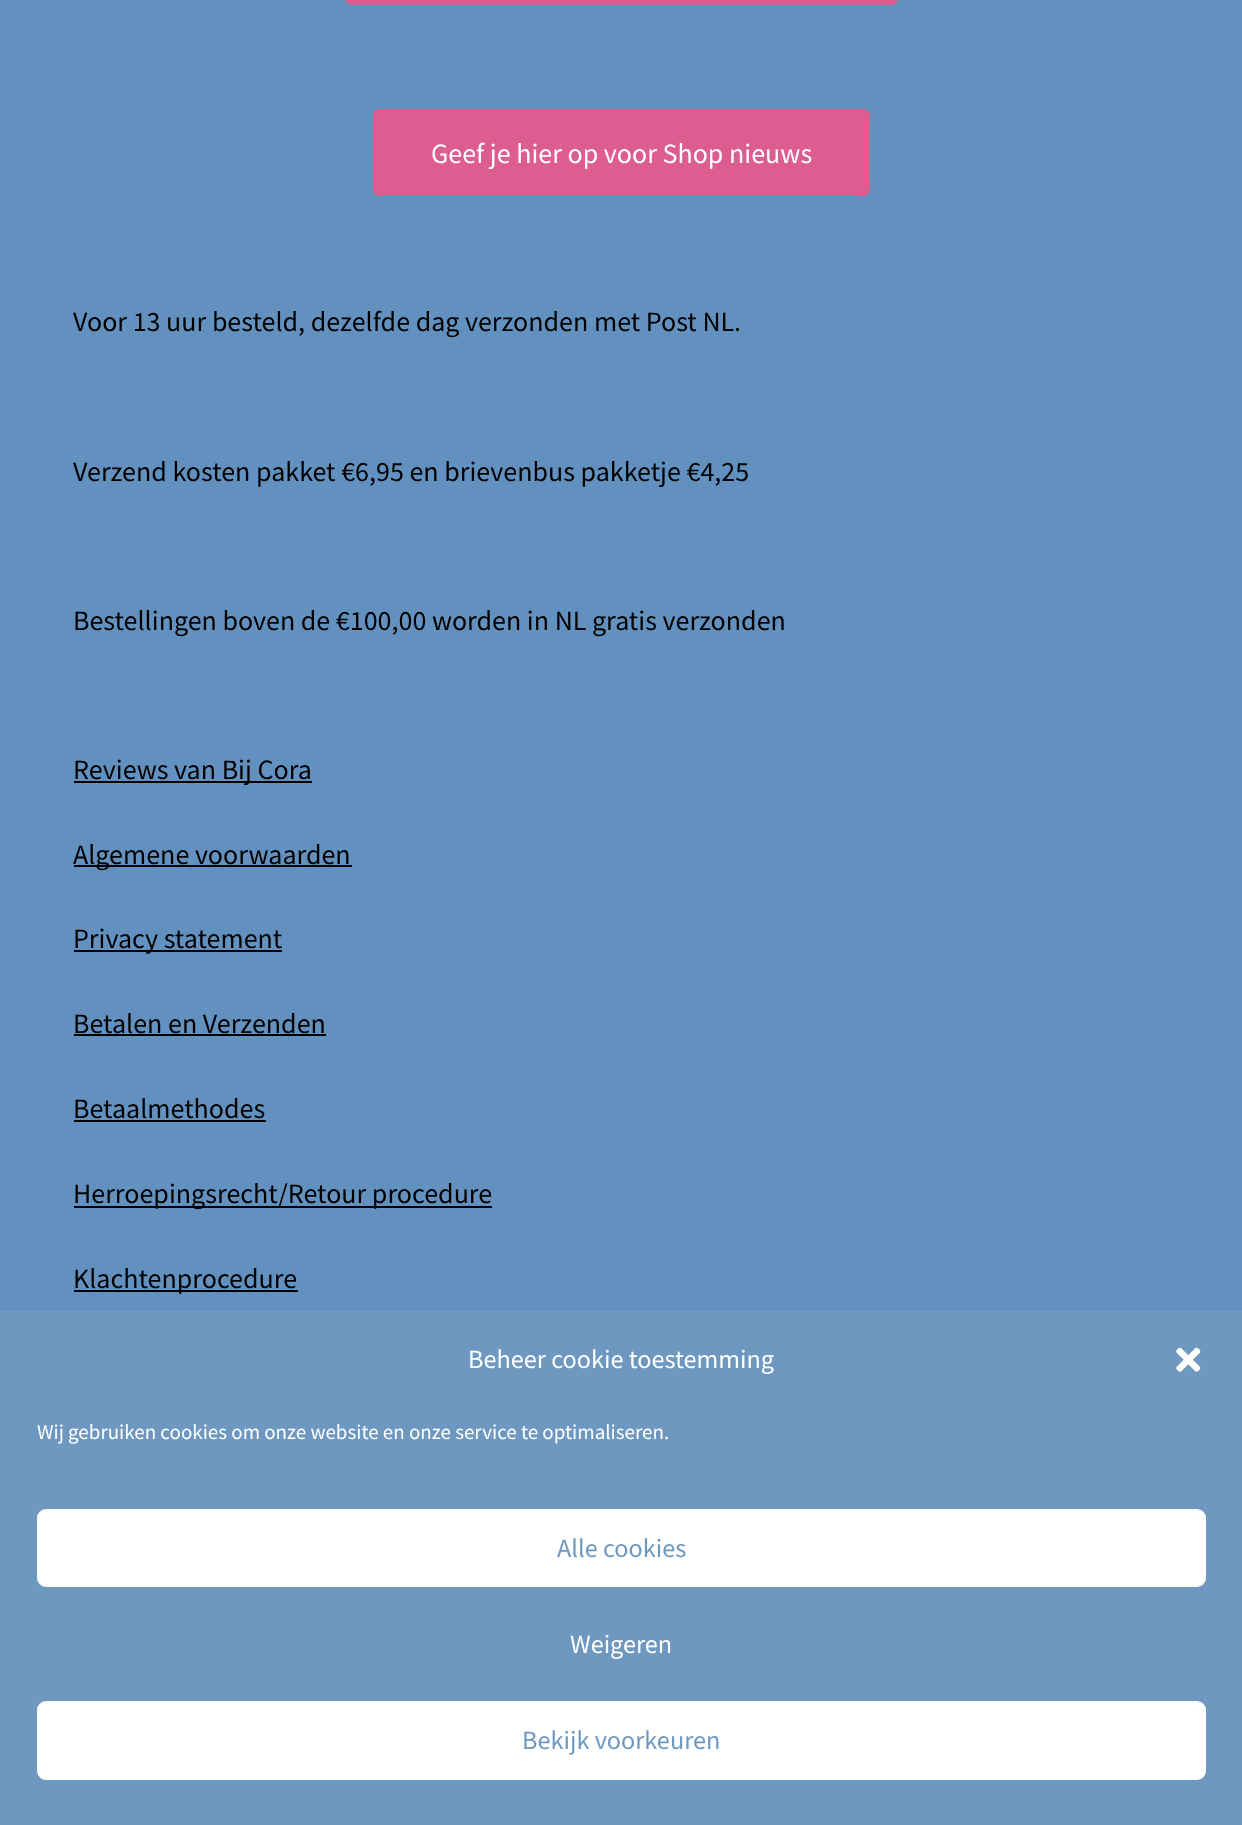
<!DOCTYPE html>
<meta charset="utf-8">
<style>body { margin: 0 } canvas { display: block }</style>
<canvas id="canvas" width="1242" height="1825"></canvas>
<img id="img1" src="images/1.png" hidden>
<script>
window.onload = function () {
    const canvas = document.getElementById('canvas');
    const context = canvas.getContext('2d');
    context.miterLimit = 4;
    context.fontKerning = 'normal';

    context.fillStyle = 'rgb(99, 145, 191)';
    context.fillRect(0, 0, 1242, 1825);
    context.fillStyle = 'rgb(221, 93, 144)';
    context.beginPath();
    context.roundRect(346, -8, 551, 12, 6);
    context.fill();
    context.strokeStyle = 'rgb(221, 93, 144)';
    context.lineWidth = 2;
    context.stroke();
    context.beginPath();
    context.roundRect(374, 110, 495, 85, 6);
    context.fill();
    context.stroke();
    context.fillStyle = 'rgb(0, 0, 0)';
    context.fillRect(74, 781, 238, 2);
    context.fillRect(74, 865, 278, 2);
    context.fillRect(74, 950, 208, 2);
    context.fillRect(74, 1034, 252, 2);
    context.fillRect(74, 1120, 192, 2);
    context.fillRect(74, 1206, 418, 2);
    context.fillRect(74, 1290, 224, 2);
    context.fillStyle = 'rgb(110, 152, 191)';
    context.fillRect(0, 1311, 1242, 514);
    context.drawImage(document.getElementById('img1'), 1176, 1347, 25, 25);
    context.fillStyle = 'rgb(255, 255, 255)';
    context.beginPath();
    context.roundRect(38, 1510, 1167, 76, 8);
    context.fill();
    context.strokeStyle = 'rgb(255, 255, 255)';
    context.stroke();
    context.beginPath();
    context.roundRect(38, 1702, 1167, 77, 8);
    context.fill();
    context.stroke();
    context.font = '28px Source Sans Pro';
    context.fillText('Geef je hier op voor Shop nieuws', 431, 163);
    context.fillStyle = 'rgb(0, 0, 0)';
    context.fillText('Voor 13 uur besteld, dezelfde dag verzonden met Post NL.', 73, 331);
    context.fillText('Verzend kosten pakket €6,95 en brievenbus pakketje €4,25', 73, 481);
    context.fillText('Bestellingen boven de €100,00 worden in NL gratis verzonden', 73, 630);
    context.fillText('Reviews van Bij Cora', 73, 779);
    context.fillText('Algemene voorwaarden', 73, 864);
    context.fillText('Privacy statement', 73, 948);
    context.fillText('Betalen en Verzenden', 73, 1033);
    context.fillText('Betaalmethodes', 73, 1118);
    context.fillText('Herroepingsrecht/Retour procedure', 73, 1203);
    context.fillText('Klachtenprocedure', 73, 1288);
    context.font = '26.25px Source Sans Pro';
    context.fillStyle = 'rgb(255, 255, 255)';
    context.fillText('Beheer cookie toestemming', 468, 1368);
    context.font = '21px Source Sans Pro';
    context.fillText('Wij gebruiken cookies om onze website en onze service te optimaliseren.', 37, 1439);
    context.font = '26.25px Source Sans Pro';
    context.fillStyle = 'rgb(110, 152, 191)';
    context.fillText('Alle cookies', 557, 1557);
    context.fillStyle = 'rgb(255, 255, 255)';
    context.fillText('Weigeren', 570, 1653);
    context.fillStyle = 'rgb(110, 152, 191)';
    context.fillText('Bekijk voorkeuren', 522, 1749);
};
</script>
